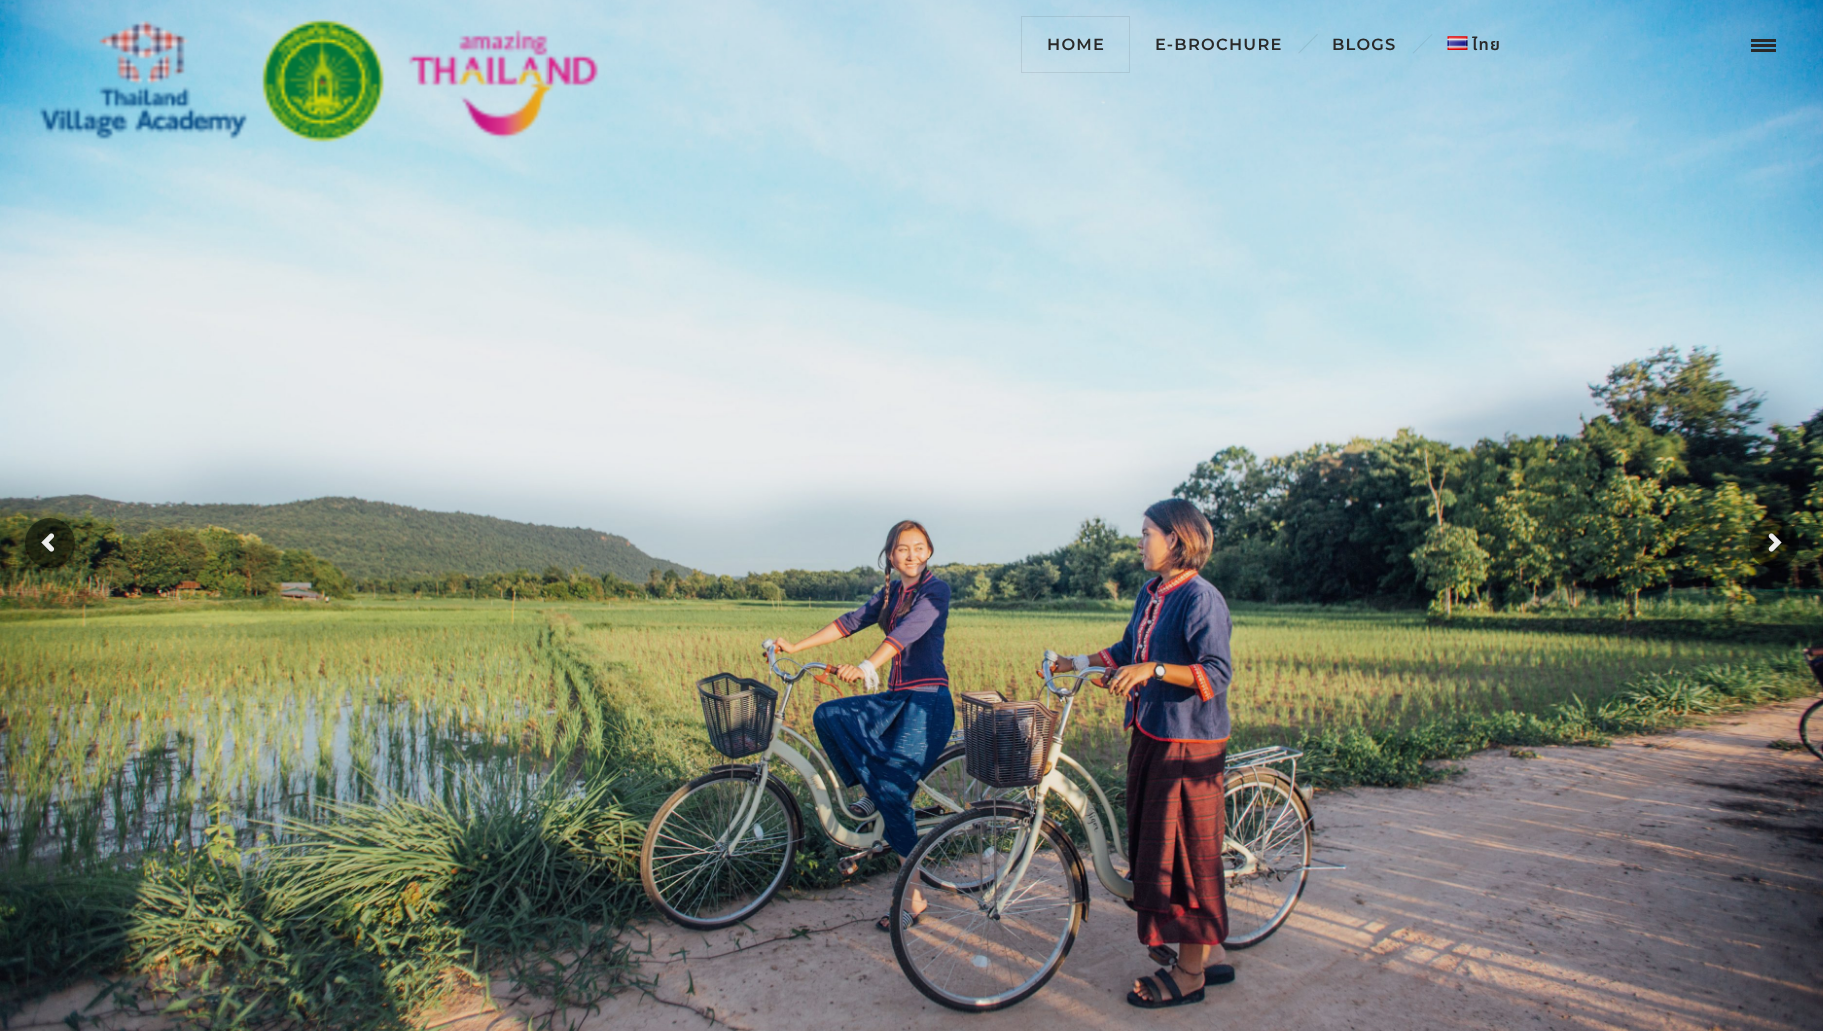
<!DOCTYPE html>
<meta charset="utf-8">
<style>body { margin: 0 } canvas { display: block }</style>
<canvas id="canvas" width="1823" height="1031"></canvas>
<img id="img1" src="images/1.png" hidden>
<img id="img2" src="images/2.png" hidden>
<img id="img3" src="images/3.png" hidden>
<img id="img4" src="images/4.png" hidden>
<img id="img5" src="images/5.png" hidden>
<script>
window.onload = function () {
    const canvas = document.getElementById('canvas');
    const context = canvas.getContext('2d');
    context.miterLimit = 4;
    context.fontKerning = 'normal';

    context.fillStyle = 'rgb(255, 255, 255)';
    context.fillRect(0, 0, 1823, 1031);
    context.drawImage(document.getElementById('img1'), 0, 0, 1823, 1031);
    context.fillStyle = 'rgba(2, 2, 2, 0.5)';
    context.beginPath();
    context.arc(50, 543, 25, 0, 2 * Math.PI);
    context.fill();
    context.drawImage(document.getElementById('img2'), 41, 533, 13, 19);
    context.beginPath();
    context.arc(1774, 543, 25, 0, 2 * Math.PI);
    context.fill();
    context.drawImage(document.getElementById('img3'), 1768, 533, 14, 19);
    context.drawImage(document.getElementById('img4'), 39, 19, 560, 124);
    context.strokeStyle = 'rgba(41, 41, 41, 0.1)';
    context.strokeRect(1021.5, 16.5, 108, 56);
    context.fillStyle = 'rgba(41, 41, 41, 0.1)';
    context.beginPath();
    context.moveTo(1317, 34);
    context.lineTo(1318, 34.5);
    context.lineTo(1299, 53.5);
    context.lineTo(1298, 53);
    context.closePath();
    context.fill();
    context.beginPath();
    context.moveTo(1432, 34);
    context.lineTo(1432.5, 34.5);
    context.lineTo(1413.5, 53.5);
    context.lineTo(1412.5, 53);
    context.closePath();
    context.fill();
    context.drawImage(document.getElementById('img5'), 1447, 36, 21, 14);
    context.fillStyle = 'rgb(41, 41, 41)';
    context.fillRect(1751, 39, 25, 3);
    context.fillRect(1751, 44, 25, 3);
    context.fillRect(1751, 49, 25, 3);
    context.letterSpacing = '1.25px';
    context.font = '600 16.25px Montserrat';
    context.fillText('HOME', 1047, 50);
    context.fillText('E-BROCHURE', 1155, 50);
    context.fillText('BLOGS', 1332, 50);
    context.font = '600 16.25px Noto Sans Thai';
    context.fillText('ไทย', 1472, 50);
};
</script>
